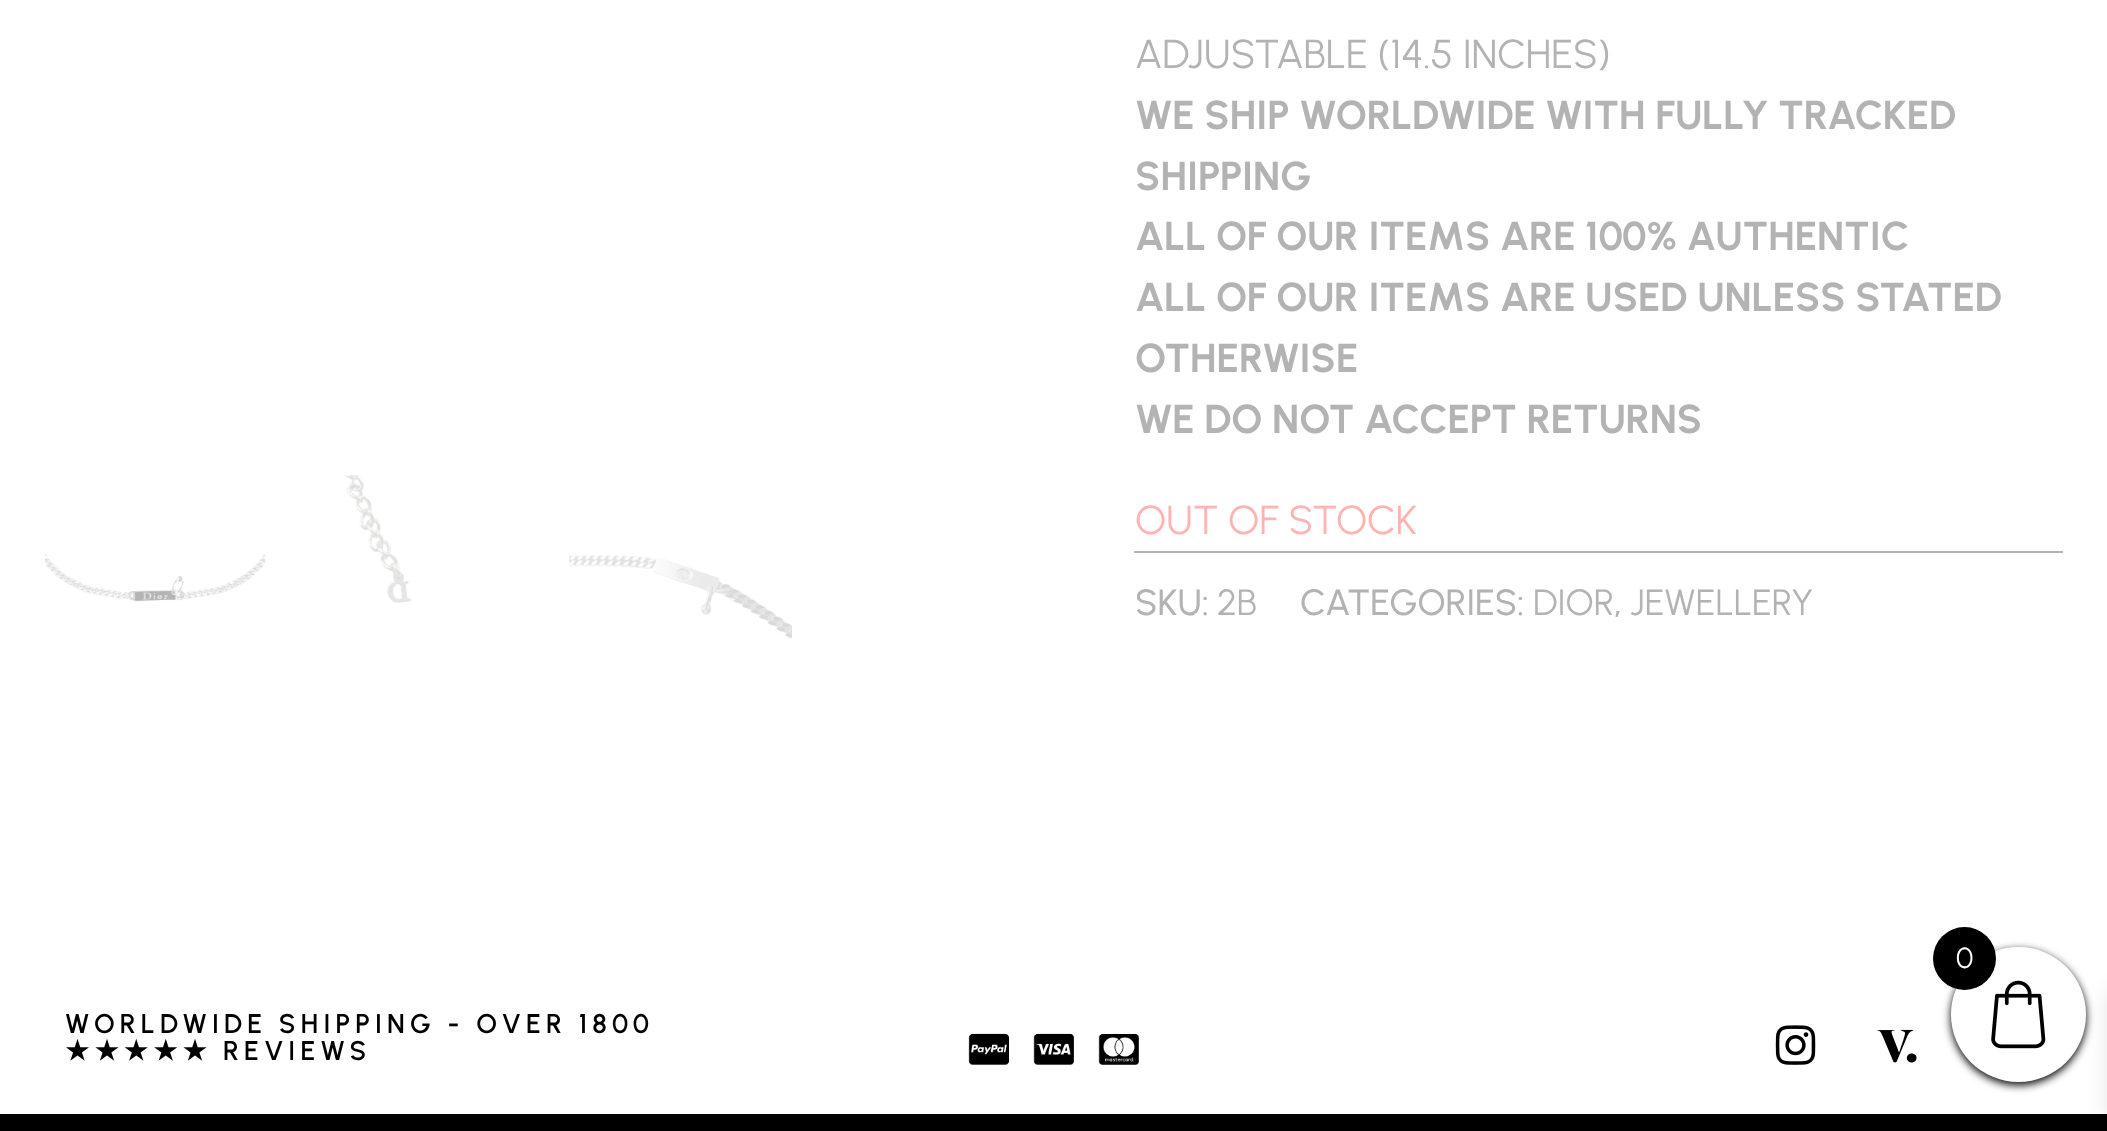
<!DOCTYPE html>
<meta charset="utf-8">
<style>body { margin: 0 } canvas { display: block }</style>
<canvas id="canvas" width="2107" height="1131"></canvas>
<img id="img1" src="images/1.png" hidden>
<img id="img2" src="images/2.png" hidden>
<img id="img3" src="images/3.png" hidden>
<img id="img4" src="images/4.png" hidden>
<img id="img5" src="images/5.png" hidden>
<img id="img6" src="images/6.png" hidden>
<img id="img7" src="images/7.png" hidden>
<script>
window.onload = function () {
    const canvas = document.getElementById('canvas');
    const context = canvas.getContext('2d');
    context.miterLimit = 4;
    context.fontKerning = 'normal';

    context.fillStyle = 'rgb(255, 255, 255)';
    context.fillRect(0, 0, 2107, 1131);
    context.drawImage(document.getElementById('img1'), 45, 554, 221, 48);
    context.drawImage(document.getElementById('img2'), 344, 475, 68, 128);
    context.drawImage(document.getElementById('img3'), 569, 555, 223, 84);
    context.fillStyle = 'rgb(179, 179, 179)';
    context.fillRect(1134, 551, 929, 2);
    context.drawImage(document.getElementById('img4'), 968, 1033, 171, 32);
    context.drawImage(document.getElementById('img5'), 1775, 1025, 41, 40);
    context.drawImage(document.getElementById('img6'), 1877, 1029, 40, 34);
    context.fillStyle = 'rgb(0, 0, 0)';
    context.fillRect(0, 1114, 2107, 17);
    context.filter = 'blur(4.5px)';
    context.beginPath();
    context.roundRect(1951, 950, 135, 135, 67.5);
    context.fill();
    context.filter = 'none';
    context.fillStyle = 'rgba(0, 0, 0, 0.1)';
    context.filter = 'blur(11px)';
    context.beginPath();
    context.rect(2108, 990, 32, 131);
    context.fill();
    context.filter = 'none';
    context.fillStyle = 'rgb(255, 255, 255)';
    context.beginPath();
    context.arc(2018.5, 1014.5, 67.5, 0, 2 * Math.PI);
    context.fill();
    context.drawImage(document.getElementById('img7'), 1991, 980, 55, 69);
    context.fillStyle = 'rgb(0, 0, 0)';
    context.beginPath();
    context.arc(1964.5, 958.5, 31.5, 0, 2 * Math.PI);
    context.fill();
    context.font = '40.5px Urbanist';
    context.fillStyle = 'rgb(179, 179, 179)';
    context.fillText('ADJUSTABLE (14.5 INCHES)', 1135, 68);
    context.font = 'bold 40.5px Urbanist';
    context.fillText('WE SHIP WORLDWIDE WITH FULLY TRACKED', 1135, 129);
    context.fillText('SHIPPING', 1135, 190);
    context.fillText('ALL OF OUR ITEMS ARE 100% AUTHENTIC', 1135, 250);
    context.fillText('ALL OF OUR ITEMS ARE USED UNLESS STATED', 1135, 311);
    context.fillText('OTHERWISE', 1135, 372);
    context.fillText('WE DO NOT ACCEPT RETURNS', 1135, 433);
    context.font = '40.5px Urbanist';
    context.fillStyle = 'rgb(255, 179, 179)';
    context.fillText('OUT OF STOCK', 1135, 534);
    context.font = '500 36.5px Urbanist';
    context.fillStyle = 'rgb(179, 179, 179)';
    context.fillText('SKU:', 1135, 615);
    context.font = '36.5px Urbanist';
    context.fillText('2B', 1217, 615);
    context.font = '500 36.5px Urbanist';
    context.fillText('CATEGORIES:', 1300, 615);
    context.font = '36.5px Urbanist';
    context.fillText('DIOR', 1533, 615);
    context.font = '500 36.5px Urbanist';
    context.fillText(',', 1614, 615);
    context.font = '36.5px Urbanist';
    context.fillText('JEWELLERY', 1630, 615);
    context.letterSpacing = '5.2px';
    context.font = '600 27px Urbanist';
    context.fillStyle = 'rgb(0, 0, 0)';
    context.fillText('WORLDWIDE SHIPPING - OVER 1800', 65, 1033);
    context.font = 'bold 27px DejaVu Sans';
    context.fillText('★★★★★', 65, 1060);
    context.font = '600 27px Urbanist';
    context.fillText('REVIEWS', 223, 1060);
    context.letterSpacing = '0px';
    context.font = '29px Urbanist';
    context.fillStyle = 'rgb(255, 255, 255)';
    context.fillText('0', 1956, 968);
};
</script>
